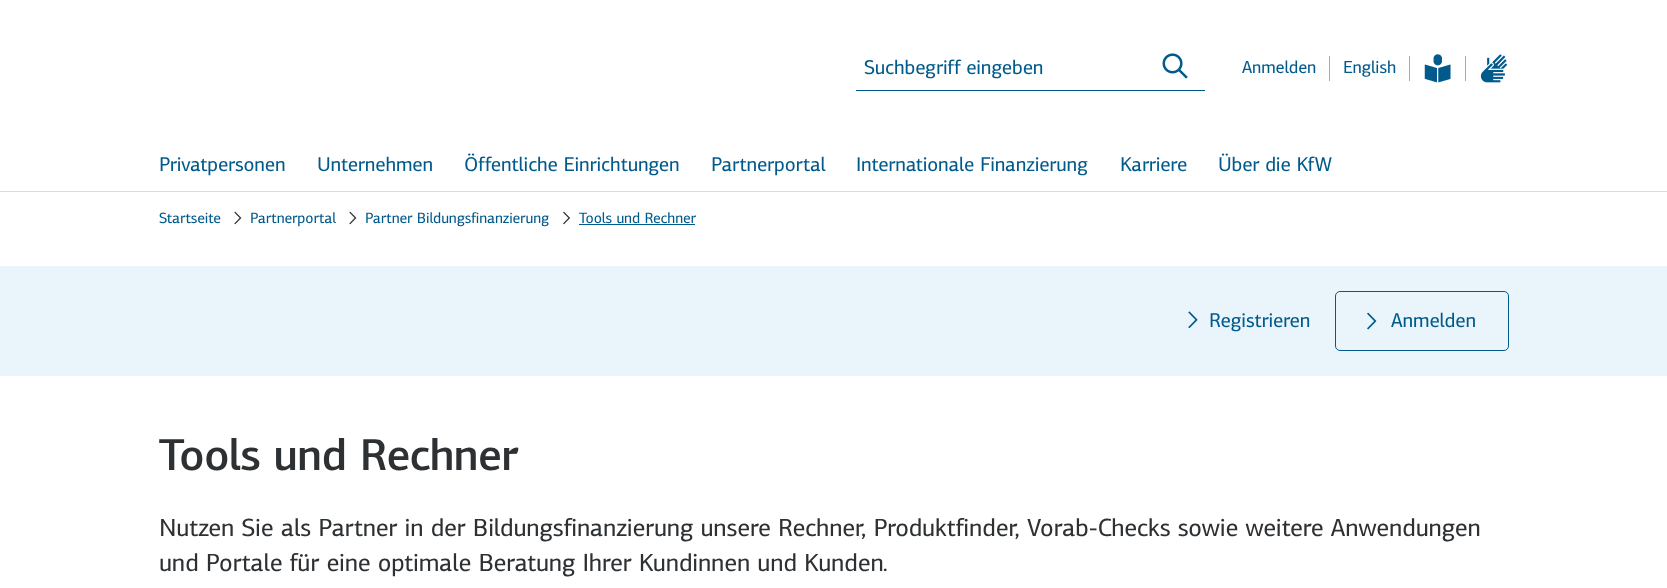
<!DOCTYPE html>
<meta charset="utf-8">
<style>body { margin: 0 } canvas { display: block }</style>
<canvas id="canvas" width="1667" height="588"></canvas>
<img id="img1" src="images/1.png" hidden>
<img id="img2" src="images/2.png" hidden>
<img id="img3" src="images/3.png" hidden>
<img id="img4" src="images/4.png" hidden>
<img id="img5" src="images/5.png" hidden>
<img id="img6" src="images/6.png" hidden>
<img id="img7" src="images/7.png" hidden>
<script>
window.onload = function () {
    const canvas = document.getElementById('canvas');
    const context = canvas.getContext('2d');
    context.miterLimit = 4;
    context.fontKerning = 'normal';

    context.fillStyle = 'rgb(255, 255, 255)';
    context.fillRect(0, 0, 1667, 588);
    context.fillStyle = 'rgb(0, 90, 140)';
    context.fillRect(856, 90, 349, 1);
    context.drawImage(document.getElementById('img1'), 1162, 53, 26, 26);
    context.fillStyle = 'rgb(161, 173, 181)';
    context.fillRect(1329, 56, 1, 25);
    context.fillRect(1409, 56, 1, 25);
    context.fillRect(1465, 56, 1, 25);
    context.drawImage(document.getElementById('img2'), 1424, 54, 27, 29);
    context.drawImage(document.getElementById('img3'), 1480, 54, 28, 29);
    context.fillStyle = 'rgb(183, 249, 170)';
    context.fillRect(0, 191, 1667, 1);
    context.drawImage(document.getElementById('img4'), 234, 211, 8, 14);
    context.drawImage(document.getElementById('img4'), 349, 211, 8, 14);
    context.drawImage(document.getElementById('img5'), 563, 211, 7, 14);
    context.fillStyle = 'rgb(0, 90, 140)';
    context.fillRect(579, 224, 116, 1);
    context.fillStyle = 'rgb(233, 245, 251)';
    context.fillRect(0, 266, 1667, 110);
    context.drawImage(document.getElementById('img6'), 1188, 311, 10, 18);
    context.beginPath();
    context.roundRect(1335.5, 291.5, 173, 59, 4.5);
    context.strokeStyle = 'rgb(0, 90, 140)';
    context.stroke();
    context.drawImage(document.getElementById('img7'), 1367, 312, 10, 18);
    context.font = '20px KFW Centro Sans';
    context.fillStyle = 'rgb(0, 90, 140)';
    context.fillText('Suchbegriff eingeben', 864, 74);
    context.font = '17.5px KFW Centro Sans';
    context.fillText('Anmelden', 1242, 73);
    context.fillText('English', 1343, 73);
    context.font = '20px KFW Centro Sans';
    context.fillText('Privatpersonen', 159, 171);
    context.fillText('Unternehmen', 317, 171);
    context.fillText('Öffentliche Einrichtungen', 464, 171);
    context.fillText('Partnerportal', 711, 171);
    context.fillText('Internationale Finanzierung', 856, 171);
    context.fillText('Karriere', 1120, 171);
    context.fillText('Über die KfW', 1218, 171);
    context.font = '15px KFW Centro Sans';
    context.fillText('Startseite', 159, 223);
    context.fillText('Partnerportal', 250, 223);
    context.fillText('Partner Bildungsfinanzierung', 365, 223);
    context.fillText('Tools und Rechner', 579, 223);
    context.font = '20px KFW Centro Sans';
    context.fillText('Registrieren', 1209, 327);
    context.fillText('Anmelden', 1391, 327);
    context.letterSpacing = '-0.6px';
    context.font = '500 45px KFW Centro Sans';
    context.fillStyle = 'rgb(45, 49, 52)';
    context.fillText('Tools und Rechner', 159, 470);
    context.letterSpacing = '0px';
    context.font = '25px KFW Centro Sans';
    context.fillText('Nutzen Sie als Partner in der Bildungsfinanzierung unsere Rechner, Produktfinder, Vorab-Checks sowie weitere Anwendungen', 159, 536);
    context.fillText('und Portale für eine optimale Beratung Ihrer Kundinnen und Kunden.', 159, 571);
};
</script>
